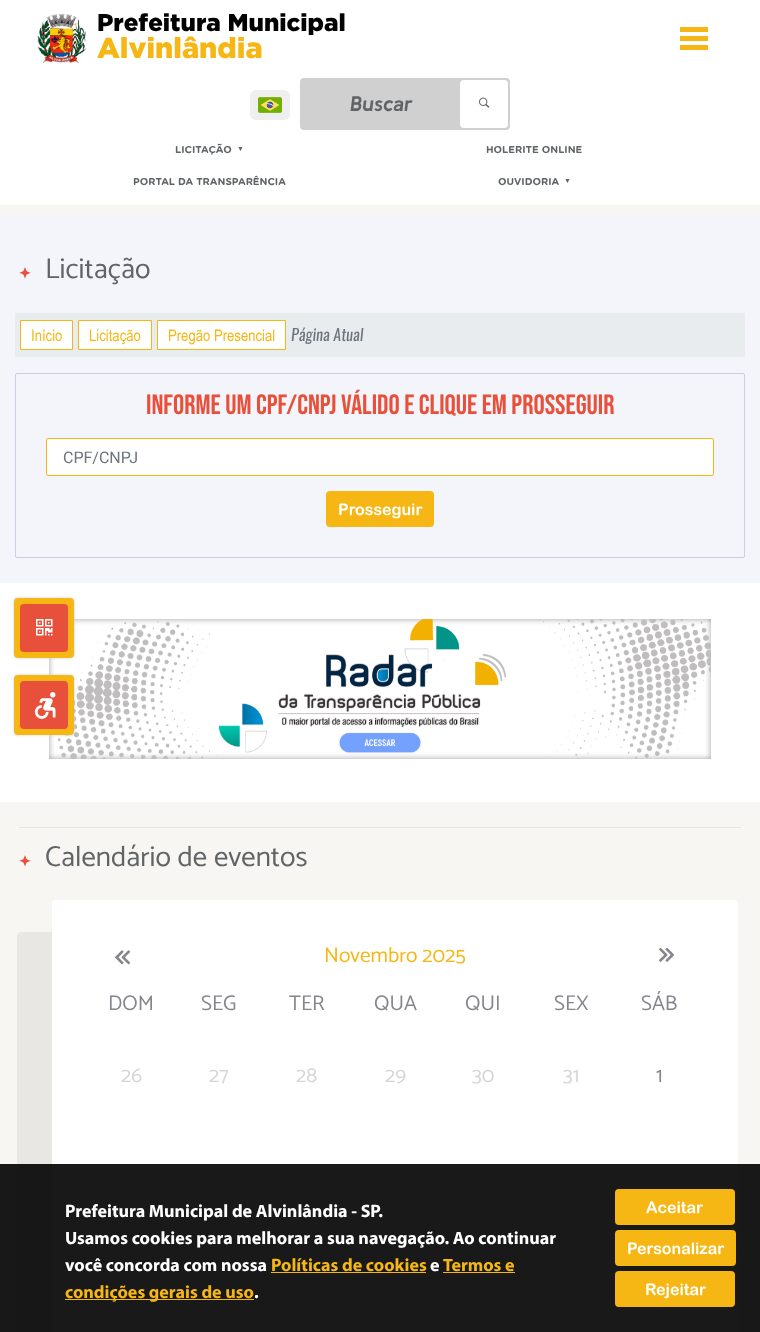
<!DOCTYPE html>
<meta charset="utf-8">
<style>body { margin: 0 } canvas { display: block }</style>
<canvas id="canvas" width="760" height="1332"></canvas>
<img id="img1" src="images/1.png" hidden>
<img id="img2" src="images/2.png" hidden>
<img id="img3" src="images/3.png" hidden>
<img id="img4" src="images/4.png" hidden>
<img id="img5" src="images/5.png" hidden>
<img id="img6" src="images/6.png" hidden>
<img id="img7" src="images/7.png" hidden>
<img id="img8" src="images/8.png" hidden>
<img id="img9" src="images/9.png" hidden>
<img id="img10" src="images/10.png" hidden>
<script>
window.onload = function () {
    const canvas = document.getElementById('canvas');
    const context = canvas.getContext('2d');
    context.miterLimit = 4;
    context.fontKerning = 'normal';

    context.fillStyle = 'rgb(247, 246, 242)';
    context.fillRect(0, 0, 760, 1332);
    context.fillStyle = 'rgb(255, 255, 255)';
    context.fillRect(0, 0, 760, 205);
    context.drawImage(document.getElementById('img1'), 37, 13, 50, 50);
    context.fillStyle = 'rgb(246, 183, 21)';
    context.fillRect(680, 27, 28, 5);
    context.fillRect(680, 36, 28, 5);
    context.fillRect(680, 45, 28, 5);
    context.fillStyle = 'rgb(239, 239, 239)';
    context.beginPath();
    context.roundRect(250, 90, 40, 30, 6);
    context.fill();
    context.drawImage(document.getElementById('img2'), 258, 97, 24, 16);
    context.fillStyle = 'rgb(208, 208, 208)';
    context.beginPath();
    context.roundRect(300, 78, 210, 52, 4);
    context.fill();
    context.fillStyle = 'rgb(255, 255, 255)';
    context.beginPath();
    context.roundRect(460, 80, 48, 48, 4);
    context.fill();
    context.drawImage(document.getElementById('img3'), 479, 97, 11, 11);
    context.fillStyle = 'rgb(244, 245, 250)';
    context.fillRect(0, 215, 760, 368);
    context.drawImage(document.getElementById('img4'), 19, 267, 12, 12);
    context.fillStyle = 'rgb(233, 236, 239)';
    context.fillRect(15, 313, 730, 44);
    context.fillStyle = 'rgb(255, 255, 255)';
    context.beginPath();
    context.rect(20.5, 320.5, 52, 29);
    context.fill();
    context.strokeStyle = 'rgb(246, 183, 21)';
    context.stroke();
    context.beginPath();
    context.rect(78.5, 320.5, 73, 29);
    context.fill();
    context.stroke();
    context.beginPath();
    context.rect(157.5, 320.5, 128, 29);
    context.fill();
    context.stroke();
    context.beginPath();
    context.roundRect(15.5, 373.5, 729, 184, 1.5);
    context.strokeStyle = 'rgb(201, 206, 225)';
    context.stroke();
    context.beginPath();
    context.roundRect(46.5, 438.5, 667, 37, 1.5);
    context.fill();
    context.strokeStyle = 'rgb(246, 183, 21)';
    context.stroke();
    context.fillStyle = 'rgb(246, 183, 21)';
    context.beginPath();
    context.roundRect(326, 491, 108, 36, 4);
    context.fill();
    context.fillStyle = 'rgb(255, 255, 255)';
    context.fillRect(0, 583, 760, 219);
    context.drawImage(document.getElementById('img5'), 49, 619, 662, 140);
    context.fillStyle = 'rgb(232, 231, 227)';
    context.fillRect(19, 827, 722, 1);
    context.drawImage(document.getElementById('img6'), 19, 855, 12, 12);
    context.beginPath();
    context.moveTo(21, 932);
    context.bezierCurveTo(19, 932, 17, 934, 17, 936);
    context.lineTo(17, 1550);
    context.bezierCurveTo(17, 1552, 19, 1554, 21, 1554);
    context.lineTo(699, 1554);
    context.bezierCurveTo(701, 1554, 703, 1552, 703, 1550);
    context.lineTo(703, 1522);
    context.lineTo(56, 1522);
    context.bezierCurveTo(54, 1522, 52, 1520, 52, 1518);
    context.lineTo(52, 932);
    context.closePath();
    context.fill();
    context.fillStyle = 'rgb(255, 255, 255)';
    context.beginPath();
    context.roundRect(52, 900, 686, 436, 4);
    context.fill();
    context.drawImage(document.getElementById('img7'), 115, 950, 15, 15);
    context.drawImage(document.getElementById('img8'), 659, 947, 15, 15);
    context.fillStyle = 'rgba(0, 0, 0, 0.9)';
    context.fillRect(0, 1164, 760, 168);
    context.fillStyle = 'rgb(246, 183, 21)';
    context.fillRect(271, 1272, 155, 1);
    context.fillRect(443, 1272, 72, 1);
    context.fillRect(65, 1299, 189, 1);
    context.beginPath();
    context.roundRect(615, 1189, 120, 36, 4);
    context.fill();
    context.beginPath();
    context.roundRect(615, 1230, 121, 36, 4);
    context.fill();
    context.beginPath();
    context.roundRect(615, 1271, 120, 36, 4);
    context.fill();
    context.fillStyle = 'rgb(203, 208, 214)';
    context.filter = 'blur(1.5px)';
    context.beginPath();
    context.roundRect(14, 598, 60, 60, 4);
    context.fill();
    context.filter = 'none';
    context.fillStyle = 'rgb(246, 183, 21)';
    context.beginPath();
    context.roundRect(14, 598, 60, 60, 4);
    context.fill();
    context.fillStyle = 'rgb(232, 80, 59)';
    context.beginPath();
    context.roundRect(20, 604, 48, 48, 4);
    context.fill();
    context.drawImage(document.getElementById('img9'), 36, 619, 17, 17);
    context.fillStyle = 'rgb(203, 208, 214)';
    context.filter = 'blur(1.5px)';
    context.beginPath();
    context.roundRect(14, 675, 60, 60, 4);
    context.fill();
    context.filter = 'none';
    context.fillStyle = 'rgb(246, 183, 21)';
    context.beginPath();
    context.roundRect(14, 675, 60, 60, 4);
    context.fill();
    context.fillStyle = 'rgb(232, 80, 59)';
    context.beginPath();
    context.roundRect(20, 681, 48, 48, 4);
    context.fill();
    context.drawImage(document.getElementById('img10'), 34, 692, 22, 27);
    context.font = '900 24.25px Gotham';
    context.fillStyle = 'rgb(0, 0, 0)';
    context.fillText('Prefeitura Municipal', 97, 31);
    context.font = '900 28.75px Gotham';
    context.fillStyle = 'rgb(246, 183, 21)';
    context.fillText('Alvinlândia', 97, 58);
    context.font = 'italic bold 21.25px Kulim Park';
    context.fillStyle = 'rgb(96, 100, 102)';
    context.fillText('Buscar', 350, 111);
    context.font = 'bold 10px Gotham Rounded';
    context.fillText('LICITAÇÃO', 175, 153);
    context.font = '7px Liberation Serif';
    context.fillText('▼', 237, 151);
    context.font = 'bold 10px Gotham Rounded';
    context.fillText('HOLERITE ONLINE', 486, 153);
    context.fillText('PORTAL DA TRANSPARÊNCIA', 133, 185);
    context.fillText('OUVIDORIA', 498, 185);
    context.font = '7px Liberation Serif';
    context.fillText('▼', 564, 183);
    context.font = '28.75px Catamaran';
    context.fillText('Licitação', 45, 278);
    context.font = '16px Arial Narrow';
    context.fillStyle = 'rgb(246, 183, 21)';
    context.fillText('Início', 31, 341);
    context.fillText('Licitação', 89, 341);
    context.fillText('Pregão Presencial', 168, 341);
    context.font = 'italic 16px Oswald';
    context.fillStyle = 'rgb(108, 117, 125)';
    context.fillText('Página Atual', 291, 341);
    context.font = '28px Bebas Neue';
    context.fillStyle = 'rgb(232, 80, 59)';
    context.fillText('Informe um CPF/CNPJ válido e clique em prosseguir', 146, 414);
    context.font = '16px Roboto';
    context.fillStyle = 'rgb(108, 117, 125)';
    context.fillText('CPF/CNPJ', 63, 463);
    context.font = 'bold 16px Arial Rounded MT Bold';
    context.fillStyle = 'rgb(255, 255, 255)';
    context.fillText('Prosseguir', 338, 515);
    context.font = '28.75px Catamaran';
    context.fillStyle = 'rgb(96, 100, 102)';
    context.fillText('Calendário de eventos', 45, 866);
    context.font = '21.25px Catamaran';
    context.fillStyle = 'rgb(246, 183, 21)';
    context.fillText('Novembro 2025', 324, 962);
    context.fillStyle = 'rgb(132, 134, 140)';
    context.fillText('DOM', 108, 1010);
    context.fillText('SEG', 201, 1010);
    context.fillText('TER', 289, 1010);
    context.fillText('QUA', 374, 1010);
    context.fillText('QUI', 465, 1010);
    context.fillText('SEX', 554, 1010);
    context.fillText('SÁB', 641, 1010);
    context.fillStyle = 'rgb(213, 214, 216)';
    context.fillText('26', 121, 1082);
    context.fillText('27', 209, 1082);
    context.fillText('28', 296, 1082);
    context.fillText('29', 385, 1082);
    context.fillText('30', 472, 1082);
    context.fillText('31', 563, 1082);
    context.fillStyle = 'rgb(132, 134, 140)';
    context.fillText('1', 656, 1082);
    context.font = 'bold 18px Myriad';
    context.fillStyle = 'rgb(255, 255, 255)';
    context.fillText('Prefeitura Municipal de Alvinlândia - SP.', 65, 1217);
    context.fillText('Usamos cookies para melhorar a sua navegação. Ao continuar', 65, 1244);
    context.fillText('você concorda com nossa', 65, 1271);
    context.fillStyle = 'rgb(246, 183, 21)';
    context.fillText('Políticas de cookies', 271, 1271);
    context.fillStyle = 'rgb(255, 255, 255)';
    context.fillText('e', 430, 1271);
    context.fillStyle = 'rgb(246, 183, 21)';
    context.fillText('Termos e', 443, 1271);
    context.fillText('condições gerais de uso', 65, 1298);
    context.fillStyle = 'rgb(255, 255, 255)';
    context.fillText('.', 254, 1298);
    context.font = 'bold 16px Arial Rounded MT Bold';
    context.fillText('Aceitar', 646, 1213);
    context.fillText('Personalizar', 627, 1254);
    context.fillText('Rejeitar', 645, 1295);
};
</script>
